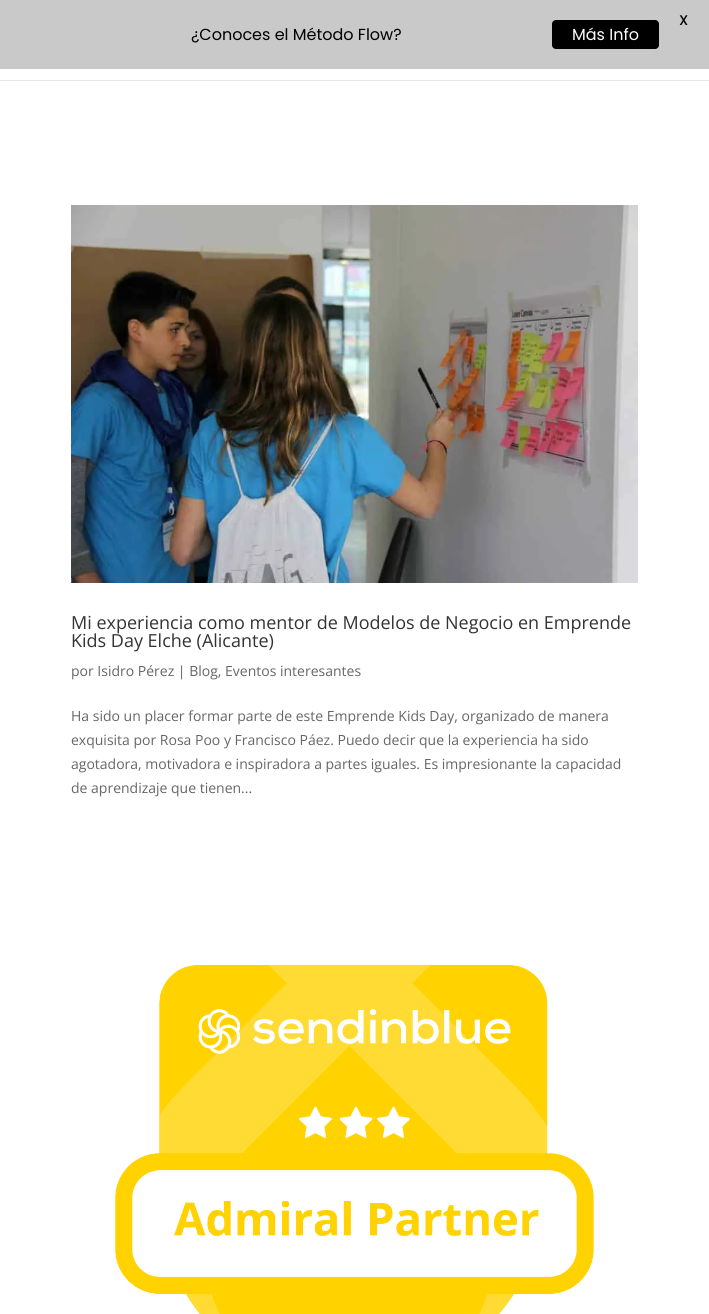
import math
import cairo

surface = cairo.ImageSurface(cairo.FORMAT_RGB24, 709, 1314)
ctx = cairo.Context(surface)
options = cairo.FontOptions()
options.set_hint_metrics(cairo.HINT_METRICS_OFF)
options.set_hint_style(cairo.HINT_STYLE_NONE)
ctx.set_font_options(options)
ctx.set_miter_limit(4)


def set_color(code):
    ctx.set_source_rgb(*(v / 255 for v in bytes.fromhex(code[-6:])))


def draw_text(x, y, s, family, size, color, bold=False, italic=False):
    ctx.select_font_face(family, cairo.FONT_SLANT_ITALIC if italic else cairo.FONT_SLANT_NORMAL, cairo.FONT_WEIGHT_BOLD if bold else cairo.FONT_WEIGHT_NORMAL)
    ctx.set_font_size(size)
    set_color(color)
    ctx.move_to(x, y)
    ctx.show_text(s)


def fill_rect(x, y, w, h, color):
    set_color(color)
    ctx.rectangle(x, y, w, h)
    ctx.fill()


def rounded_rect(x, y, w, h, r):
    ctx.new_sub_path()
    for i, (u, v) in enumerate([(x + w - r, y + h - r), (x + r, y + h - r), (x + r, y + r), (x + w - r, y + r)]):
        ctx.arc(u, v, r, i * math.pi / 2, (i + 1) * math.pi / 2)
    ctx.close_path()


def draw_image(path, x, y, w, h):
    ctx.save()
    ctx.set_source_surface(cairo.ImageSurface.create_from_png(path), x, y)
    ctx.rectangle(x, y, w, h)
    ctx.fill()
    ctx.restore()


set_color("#ffffff")
ctx.paint()
fill_rect(0, 0, 709, 69, "#c9c9c9")
draw_text(679, 25, "X", "Poppins Medium", 14, "#000000")
draw_text(191, 40, "¿Conoces el Método Flow?", "Poppins", 16, "#000000")
rounded_rect(552, 20, 107, 29, 4)
ctx.fill()
draw_text(572, 40, "Más Info", "Poppins", 16, "#ffffff")
fill_rect(0, 80, 709, 1, "#e6e6e6")
draw_image("assets/img1.png", 71, 205, 567, 378)
draw_text(71, 629, "Mi experiencia como mentor de Modelos de Negocio en Emprende", "Open Sans", 18, "#333333")
draw_text(71, 647, "Kids Day Elche (Alicante)", "Open Sans", 18, "#333333")
draw_text(71, 676, "por Isidro Pérez | Blog, Eventos interesantes", "Open Sans", 14, "#666666")
draw_text(71, 721, "Ha sido un placer formar parte de este Emprende Kids Day, organizado de manera", "Open Sans", 14, "#666666")
draw_text(71, 745, "exquisita por Rosa Poo y Francisco Páez. Puedo decir que la experiencia ha sido", "Open Sans", 14, "#666666")
draw_text(71, 769, "agotadora, motivadora e inspiradora a partes iguales. Es impresionante la capacidad", "Open Sans", 14, "#666666")
draw_text(71, 793, "de aprendizaje que tienen...", "Open Sans", 14, "#666666")
draw_image("assets/img2.png", 115, 964, 479, 350)
surface.write_to_png("output.png")
